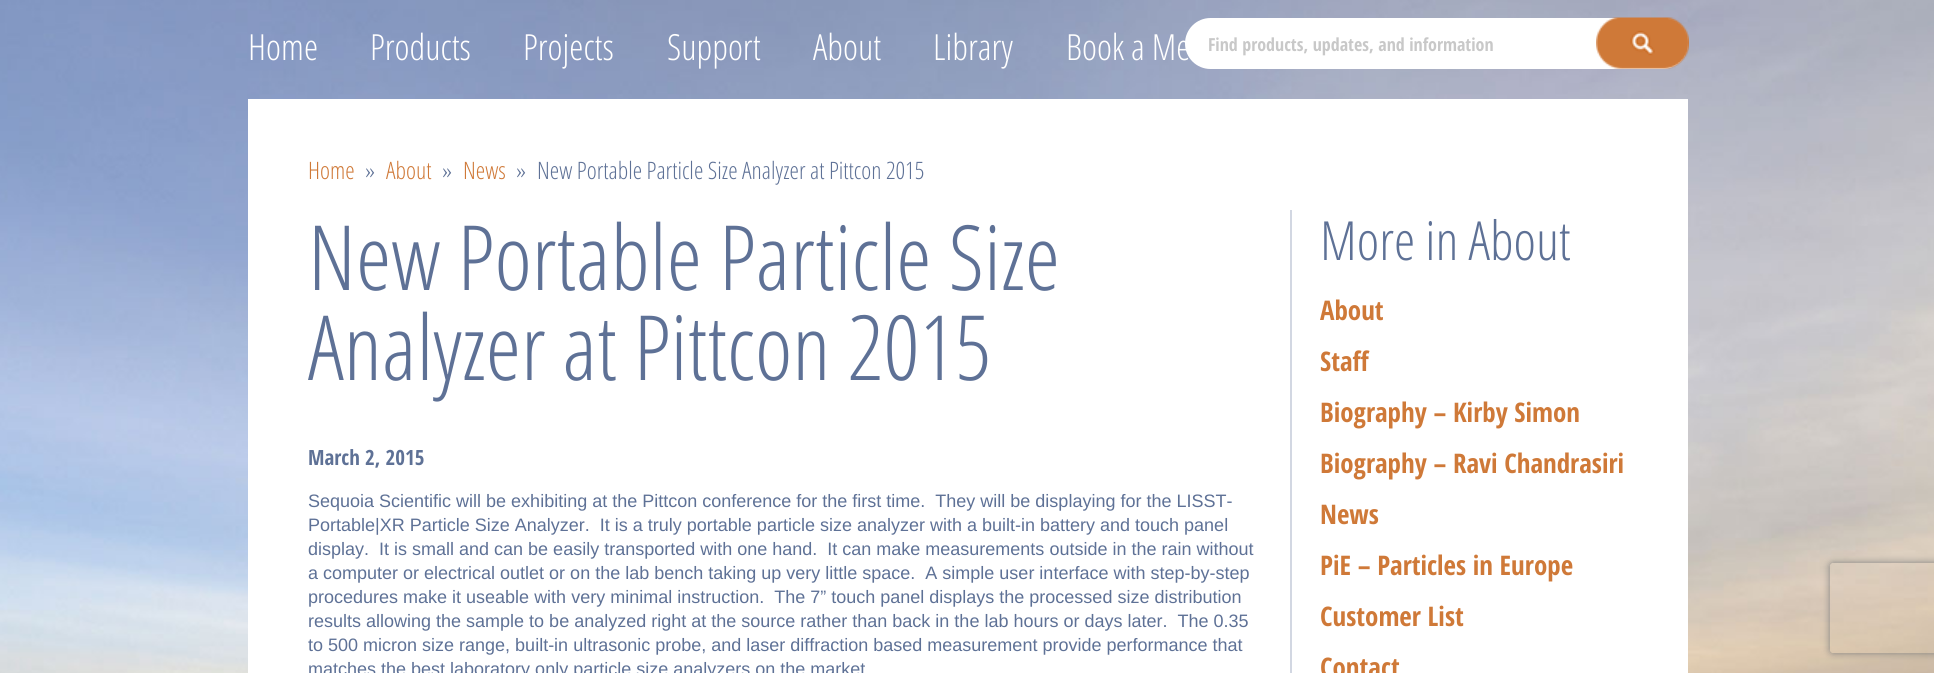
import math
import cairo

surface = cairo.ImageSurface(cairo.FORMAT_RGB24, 1934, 673)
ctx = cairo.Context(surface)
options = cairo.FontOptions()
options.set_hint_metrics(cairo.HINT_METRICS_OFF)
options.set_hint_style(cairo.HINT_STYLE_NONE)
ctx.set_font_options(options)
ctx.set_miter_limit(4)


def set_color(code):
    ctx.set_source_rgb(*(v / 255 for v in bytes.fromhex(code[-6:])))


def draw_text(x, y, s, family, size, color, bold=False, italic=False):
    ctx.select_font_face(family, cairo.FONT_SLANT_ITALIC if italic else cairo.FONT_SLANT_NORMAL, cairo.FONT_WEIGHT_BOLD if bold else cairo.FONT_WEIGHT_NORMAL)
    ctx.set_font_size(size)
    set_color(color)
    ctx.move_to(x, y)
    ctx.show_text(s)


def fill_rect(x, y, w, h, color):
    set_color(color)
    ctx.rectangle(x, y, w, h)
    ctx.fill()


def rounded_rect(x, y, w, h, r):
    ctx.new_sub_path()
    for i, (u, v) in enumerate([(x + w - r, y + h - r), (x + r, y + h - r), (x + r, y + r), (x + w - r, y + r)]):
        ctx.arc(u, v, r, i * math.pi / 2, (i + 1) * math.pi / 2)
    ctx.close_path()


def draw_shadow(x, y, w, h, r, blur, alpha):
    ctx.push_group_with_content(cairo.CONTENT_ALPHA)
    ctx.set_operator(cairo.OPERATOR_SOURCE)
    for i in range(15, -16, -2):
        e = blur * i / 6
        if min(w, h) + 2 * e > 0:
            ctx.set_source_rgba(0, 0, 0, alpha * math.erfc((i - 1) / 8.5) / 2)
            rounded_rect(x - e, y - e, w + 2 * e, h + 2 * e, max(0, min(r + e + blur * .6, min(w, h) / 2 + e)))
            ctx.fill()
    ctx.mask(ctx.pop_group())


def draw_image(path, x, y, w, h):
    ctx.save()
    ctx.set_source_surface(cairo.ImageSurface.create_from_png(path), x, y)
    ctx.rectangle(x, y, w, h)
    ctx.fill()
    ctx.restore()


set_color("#ffffff")
ctx.paint()
draw_image("assets/img1.png", 0, 0, 1934, 673)
draw_text(248, 60, "Home", "Open Sans Condensed Light", 36, "#ffffff")
draw_text(370, 60, "Products", "Open Sans Condensed Light", 36, "#ffffff")
draw_text(523, 60, "Projects", "Open Sans Condensed Light", 36, "#ffffff")
draw_text(667, 60, "Support", "Open Sans Condensed Light", 36, "#ffffff")
draw_text(813, 60, "About", "Open Sans Condensed Light", 36, "#ffffff")
draw_text(933, 60, "Library", "Open Sans Condensed Light", 36, "#ffffff")
draw_text(1066, 60, "Book a Me", "Open Sans Condensed Light", 36, "#ffffff")
rounded_rect(1185, 18, 503, 51, 25.5)
ctx.fill()
draw_text(1208, 51, "Find products, updates, and information", "Open Sans Condensed", 18, "#c8c8c8", bold=True)
draw_image("assets/img2.png", 1596, 17, 93, 52)
fill_rect(248, 99, 1440, 574, "#ffffff")
draw_text(308, 179, "Home", "Open Sans Condensed Light", 24, "#cf7938")
draw_text(365, 179, "»", "Open Sans Condensed Light", 24, "#5e7196")
draw_text(386, 179, "About", "Open Sans Condensed Light", 24, "#cf7938")
draw_text(442, 179, "»", "Open Sans Condensed Light", 24, "#5e7196")
draw_text(463, 179, "News", "Open Sans Condensed Light", 24, "#cf7938")
draw_text(516, 179, "»", "Open Sans Condensed Light", 24, "#5e7196")
draw_text(537, 179, "New Portable Particle Size Analyzer at Pittcon 2015", "Open Sans Condensed Light", 24, "#5e7196")
fill_rect(1290, 210, 2, 463, "#d2d7e2")
draw_text(308, 290, "New Portable Particle Size", "Open Sans Condensed Light", 90, "#5e7196")
draw_text(308, 380, "Analyzer at Pittcon 2015", "Open Sans Condensed Light", 90, "#5e7196")
draw_text(308, 465, "March 2, 2015", "Open Sans Condensed", 21, "#5e7196", bold=True)
draw_text(308, 507, "Sequoia Scientific will be exhibiting at the Pittcon conference for the first time.  They will be displaying for the LISST-", "Liberation Sans", 18, "#5e7196")
draw_text(308, 531, "Portable|XR Particle Size Analyzer.  It is a truly portable particle size analyzer with a built-in battery and touch panel", "Liberation Sans", 18, "#5e7196")
draw_text(308, 555, "display.  It is small and can be easily transported with one hand.  It can make measurements outside in the rain without", "Liberation Sans", 18, "#5e7196")
draw_text(308, 579, "a computer or electrical outlet or on the lab bench taking up very little space.  A simple user interface with step-by-step", "Liberation Sans", 18, "#5e7196")
draw_text(308, 603, "procedures make it useable with very minimal instruction.  The 7” touch panel displays the processed size distribution", "Liberation Sans", 18, "#5e7196")
draw_text(308, 627, "results allowing the sample to be analyzed right at the source rather than back in the lab hours or days later.  The 0.35", "Liberation Sans", 18, "#5e7196")
draw_text(308, 651, "to 500 micron size range, built-in ultrasonic probe, and laser diffraction based measurement provide performance that", "Liberation Sans", 18, "#5e7196")
draw_text(308, 675, "matches the best laboratory only particle size analyzers on the market", "Liberation Sans", 18, "#5e7196")
draw_text(1320, 260, "More in About", "Open Sans Condensed Light", 54, "#5e7196")
draw_text(1320, 320, "About", "Open Sans Condensed", 27, "#cf7938", bold=True)
draw_text(1320, 371, "Staff", "Open Sans Condensed", 27, "#cf7938", bold=True)
draw_text(1320, 422, "Biography – Kirby Simon", "Open Sans Condensed", 27, "#cf7938", bold=True)
draw_text(1320, 473, "Biography – Ravi Chandrasiri", "Open Sans Condensed", 27, "#cf7938", bold=True)
draw_text(1320, 524, "News", "Open Sans Condensed", 27, "#cf7938", bold=True)
draw_text(1320, 575, "PiE – Particles in Europe", "Open Sans Condensed", 27, "#cf7938", bold=True)
draw_text(1320, 626, "Customer List", "Open Sans Condensed", 27, "#cf7938", bold=True)
draw_text(1320, 677, "Contact", "Open Sans Condensed", 27, "#cf7938", bold=True)
ctx.save()
ctx.set_fill_rule(cairo.FILL_RULE_EVEN_ODD)
ctx.new_path()
ctx.move_to(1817, 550)
ctx.line_to(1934, 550)
ctx.line_to(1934, 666)
ctx.line_to(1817, 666)
ctx.close_path()
ctx.move_to(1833, 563)
ctx.line_to(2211, 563)
ctx.curve_to(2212.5, 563, 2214, 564.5, 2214, 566)
ctx.line_to(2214, 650)
ctx.curve_to(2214, 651.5, 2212.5, 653, 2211, 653)
ctx.line_to(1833, 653)
ctx.curve_to(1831.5, 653, 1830, 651.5, 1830, 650)
ctx.line_to(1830, 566)
ctx.curve_to(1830, 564.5, 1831.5, 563, 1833, 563)
ctx.close_path()
ctx.clip()
set_color("#808080")
draw_shadow(1830, 563, 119, 90, 3, 4, 1)
ctx.restore()
surface.write_to_png("output.png")
